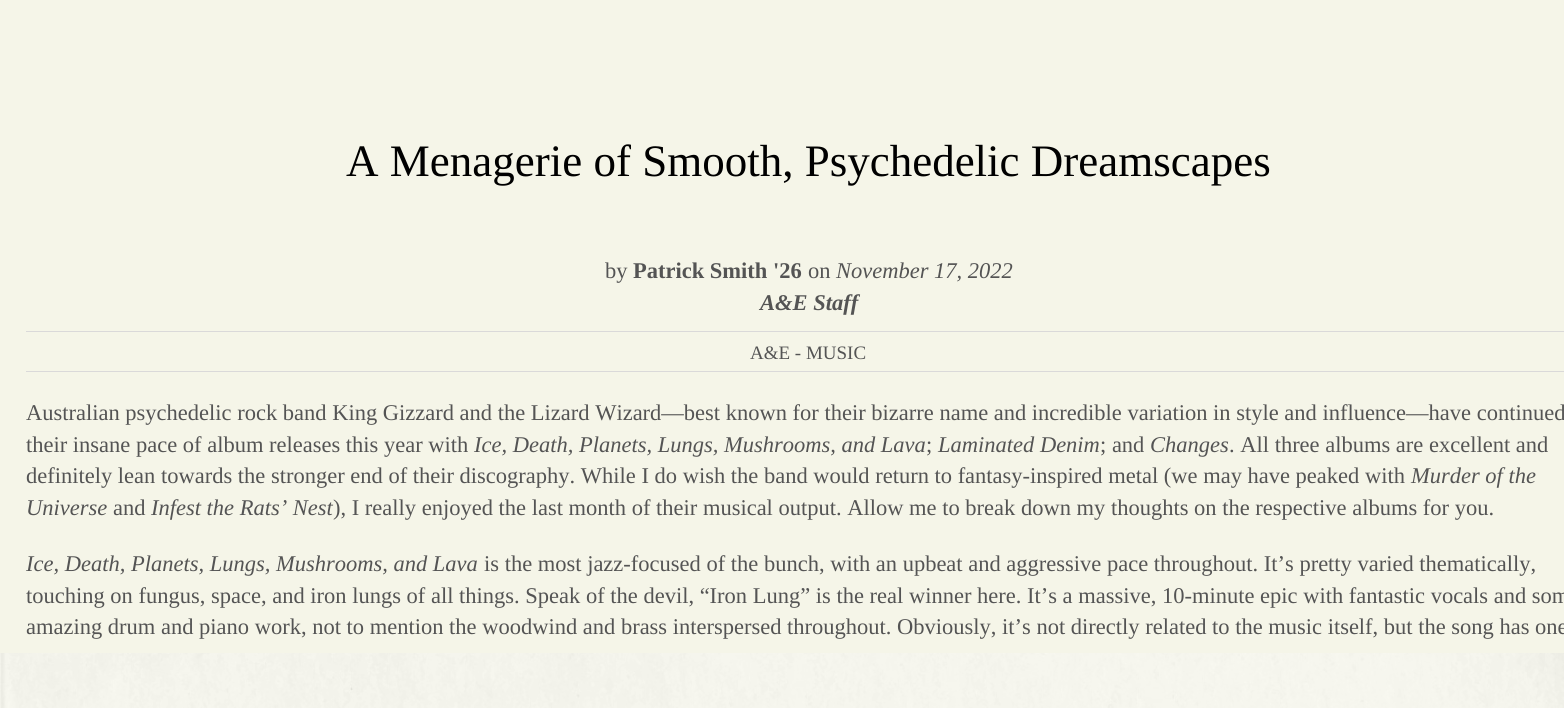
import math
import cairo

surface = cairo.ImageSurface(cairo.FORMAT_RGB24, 1564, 708)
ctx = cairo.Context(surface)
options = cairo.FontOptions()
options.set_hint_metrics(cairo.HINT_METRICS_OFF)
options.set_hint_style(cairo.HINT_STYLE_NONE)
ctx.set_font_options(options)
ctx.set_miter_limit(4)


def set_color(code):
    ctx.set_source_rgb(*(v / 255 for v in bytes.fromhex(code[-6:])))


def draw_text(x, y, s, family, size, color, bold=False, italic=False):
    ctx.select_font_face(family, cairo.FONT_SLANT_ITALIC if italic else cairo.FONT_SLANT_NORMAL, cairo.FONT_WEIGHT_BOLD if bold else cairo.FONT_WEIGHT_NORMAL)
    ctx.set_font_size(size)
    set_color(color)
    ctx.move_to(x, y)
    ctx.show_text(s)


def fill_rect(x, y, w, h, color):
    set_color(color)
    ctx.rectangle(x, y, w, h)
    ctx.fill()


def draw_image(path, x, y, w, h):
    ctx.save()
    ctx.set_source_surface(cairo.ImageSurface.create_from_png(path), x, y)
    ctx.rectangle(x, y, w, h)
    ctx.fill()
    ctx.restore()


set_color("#f9f9ef")
ctx.paint()
fill_rect(0, 0, 1564, 653, "#f5f5e8")
draw_text(346, 176, "A Menagerie of Smooth, Psychedelic Dreamscapes", "Liberation Serif", 45, "#000000")
draw_text(605, 278, "by", "Liberation Serif", 22.5, "#545454")
draw_text(633, 278, "Patrick Smith '26", "Liberation Serif", 22.5, "#545454", bold=True)
draw_text(808, 278, "on", "Liberation Serif", 22.5, "#545454")
draw_text(836, 278, "November 17, 2022", "Liberation Serif", 22.5, "#545454", italic=True)
draw_text(760, 310, "A&E Staff", "Liberation Serif", 22.5, "#545454", bold=True, italic=True)
fill_rect(26, 331, 1538, 1, "#dad9d9")
draw_text(750, 359, "A&E - MUSIC", "Liberation Serif", 19, "#545454")
fill_rect(26, 371, 1538, 1, "#dad9d9")
draw_text(26, 420, "Australian psychedelic rock band King Gizzard and the Lizard Wizard—best known for their bizarre name and incredible variation in style and influence—have continued", "Liberation Serif", 22.5, "#545454")
draw_text(26, 452, "their insane pace of album releases this year with", "Liberation Serif", 22.5, "#545454")
draw_text(474, 452, "Ice, Death, Planets, Lungs, Mushrooms, and Lava", "Liberation Serif", 22.5, "#545454", italic=True)
draw_text(926, 452, ";", "Liberation Serif", 22.5, "#545454")
draw_text(938, 452, "Laminated Denim", "Liberation Serif", 22.5, "#545454", italic=True)
draw_text(1100, 452, "; and", "Liberation Serif", 22.5, "#545454")
draw_text(1150, 452, "Changes", "Liberation Serif", 22.5, "#545454", italic=True)
draw_text(1229, 452, ". All three albums are excellent and", "Liberation Serif", 22.5, "#545454")
draw_text(26, 483, "definitely lean towards the stronger end of their discography. While I do wish the band would return to fantasy-inspired metal (we may have peaked with", "Liberation Serif", 22.5, "#545454")
draw_text(1411, 483, "Murder of the", "Liberation Serif", 22.5, "#545454", italic=True)
draw_text(26, 515, "Universe", "Liberation Serif", 22.5, "#545454", italic=True)
draw_text(113, 515, "and", "Liberation Serif", 22.5, "#545454")
draw_text(151, 515, "Infest the Rats’ Nest", "Liberation Serif", 22.5, "#545454", italic=True)
draw_text(333, 515, "), I really enjoyed the last month of their musical output. Allow me to break down my thoughts on the respective albums for you.", "Liberation Serif", 22.5, "#545454")
draw_text(26, 571, "Ice, Death, Planets, Lungs, Mushrooms, and Lava", "Liberation Serif", 22.5, "#545454", italic=True)
draw_text(484, 571, "is the most jazz-focused of the bunch, with an upbeat and aggressive pace throughout. It’s pretty varied thematically,", "Liberation Serif", 22.5, "#545454")
draw_text(26, 603, "touching on fungus, space, and iron lungs of all things. Speak of the devil, “Iron Lung” is the real winner here. It’s a massive, 10-minute epic with fantastic vocals and som", "Liberation Serif", 22.5, "#545454")
draw_text(26, 634, "amazing drum and piano work, not to mention the woodwind and brass interspersed throughout. Obviously, it’s not directly related to the music itself, but the song has one", "Liberation Serif", 22.5, "#545454")
draw_image("assets/img1.png", 0, 653, 1564, 55)
surface.write_to_png("output.png")
